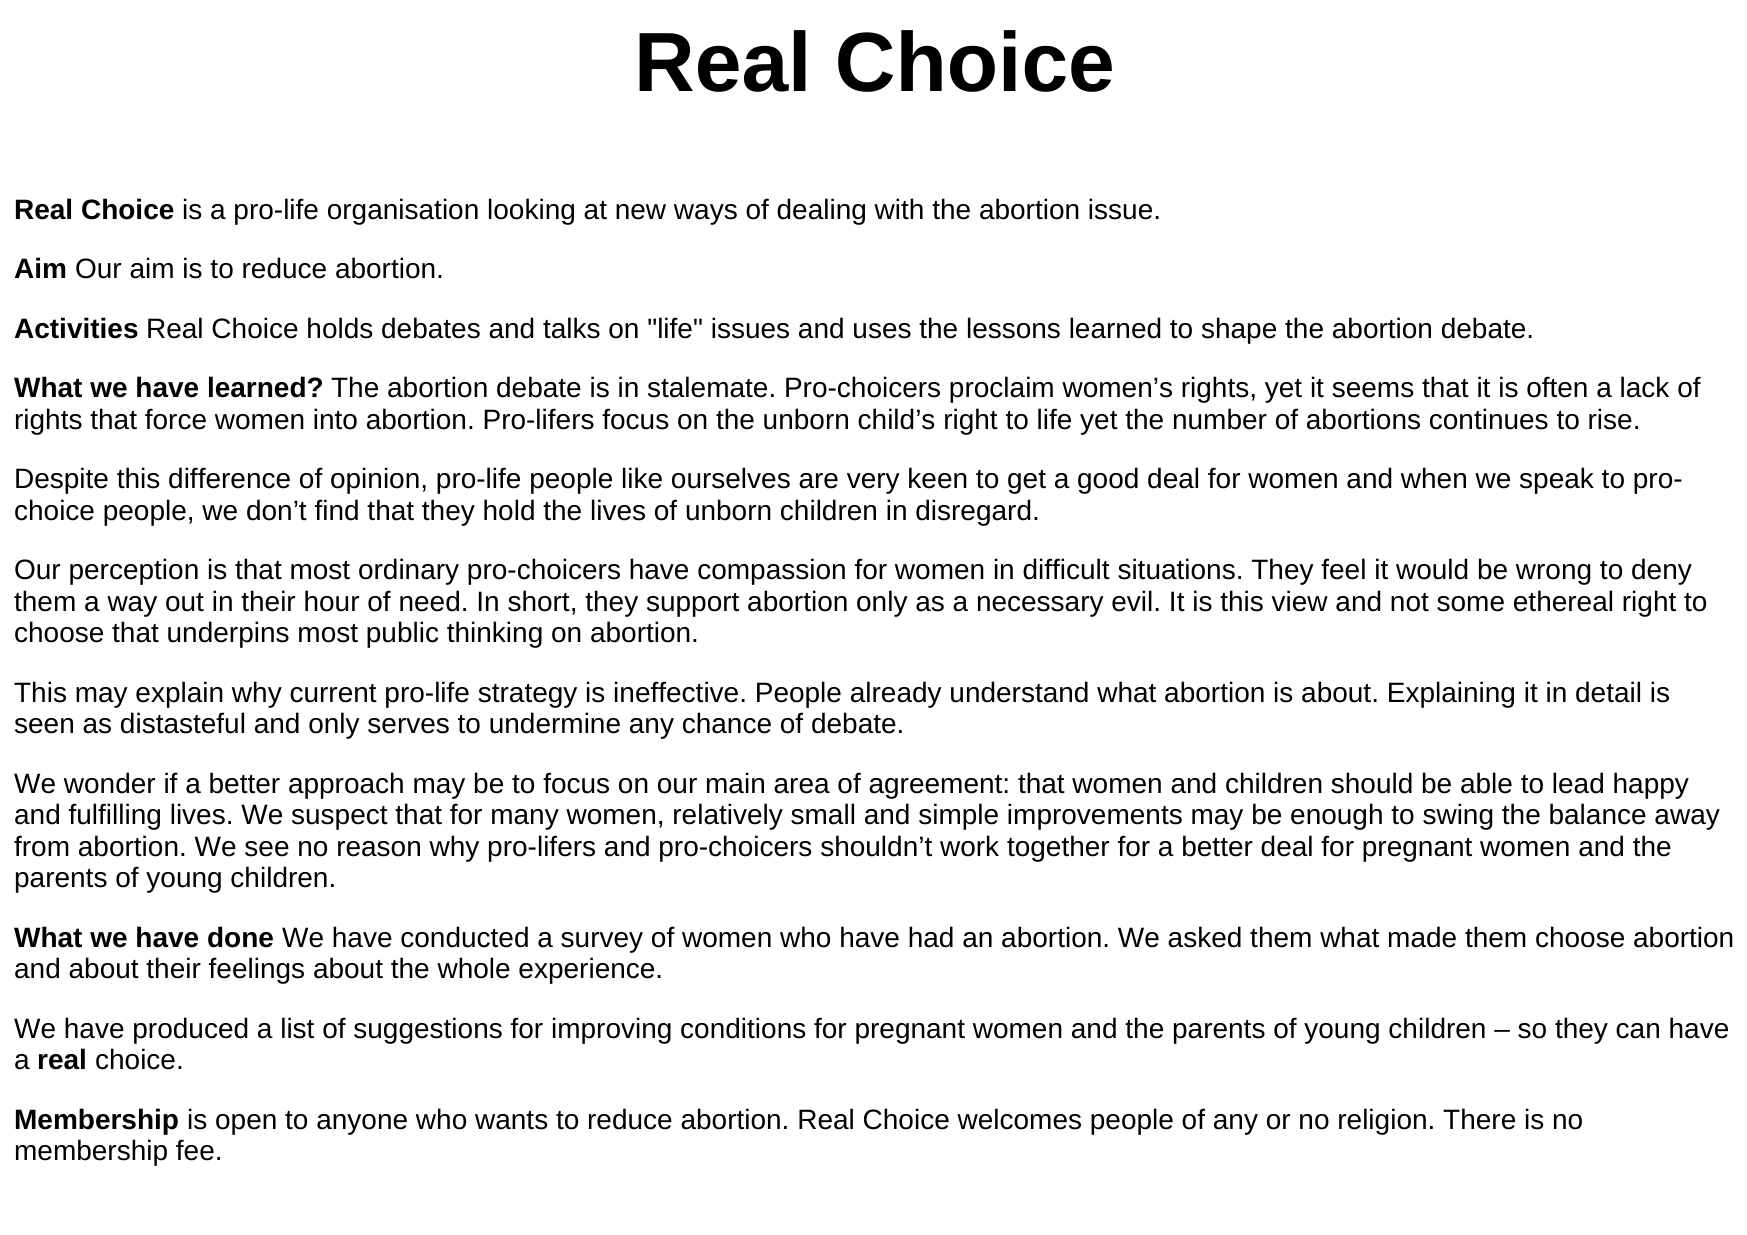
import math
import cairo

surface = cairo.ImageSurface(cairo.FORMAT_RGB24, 1747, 1235)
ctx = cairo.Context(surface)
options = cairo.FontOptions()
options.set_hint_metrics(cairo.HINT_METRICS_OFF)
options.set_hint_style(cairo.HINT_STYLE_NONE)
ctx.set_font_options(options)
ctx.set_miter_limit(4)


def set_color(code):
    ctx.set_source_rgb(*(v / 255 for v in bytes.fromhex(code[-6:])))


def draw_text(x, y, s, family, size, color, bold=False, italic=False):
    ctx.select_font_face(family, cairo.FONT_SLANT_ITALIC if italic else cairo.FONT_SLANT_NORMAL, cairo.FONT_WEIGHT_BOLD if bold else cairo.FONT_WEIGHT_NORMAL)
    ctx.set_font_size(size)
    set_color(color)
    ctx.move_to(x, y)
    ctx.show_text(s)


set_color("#ffffff")
ctx.paint()
draw_text(634, 91, "Real Choice", "Liberation Sans", 84, "#000000", bold=True)
draw_text(14, 219, "Real Choice", "Liberation Sans", 28, "#000000", bold=True)
draw_text(182, 219, "is a pro-life organisation looking at new ways of dealing with the abortion issue.", "Liberation Sans", 28, "#000000")
draw_text(14, 278, "Aim", "Liberation Sans", 28, "#000000", bold=True)
draw_text(75, 278, "Our aim is to reduce abortion.", "Liberation Sans", 28, "#000000")
draw_text(14, 338, "Activities", "Liberation Sans", 28, "#000000", bold=True)
draw_text(146, 338, "Real Choice holds debates and talks on \"life\" issues and uses the lessons learned to shape the abortion debate.", "Liberation Sans", 28, "#000000")
draw_text(14, 397, "What we have learned?", "Liberation Sans", 28, "#000000", bold=True)
draw_text(331, 397, "The abortion debate is in stalemate. Pro-choicers proclaim women’s rights, yet it seems that it is often a lack of", "Liberation Sans", 28, "#000000")
draw_text(14, 429, "rights that force women into abortion. Pro-lifers focus on the unborn child’s right to life yet the number of abortions continues to rise.", "Liberation Sans", 28, "#000000")
draw_text(14, 488, "Despite this difference of opinion, pro-life people like ourselves are very keen to get a good deal for women and when we speak to pro-", "Liberation Sans", 28, "#000000")
draw_text(14, 520, "choice people, we don’t find that they hold the lives of unborn children in disregard.", "Liberation Sans", 28, "#000000")
draw_text(14, 579, "Our perception is that most ordinary pro-choicers have compassion for women in difficult situations. They feel it would be wrong to deny", "Liberation Sans", 28, "#000000")
draw_text(14, 611, "them a way out in their hour of need. In short, they support abortion only as a necessary evil. It is this view and not some ethereal right to", "Liberation Sans", 28, "#000000")
draw_text(14, 642, "choose that underpins most public thinking on abortion.", "Liberation Sans", 28, "#000000")
draw_text(14, 702, "This may explain why current pro-life strategy is ineffective. People already understand what abortion is about. Explaining it in detail is", "Liberation Sans", 28, "#000000")
draw_text(14, 733, "seen as distasteful and only serves to undermine any chance of debate.", "Liberation Sans", 28, "#000000")
draw_text(14, 793, "We wonder if a better approach may be to focus on our main area of agreement: that women and children should be able to lead happy", "Liberation Sans", 28, "#000000")
draw_text(14, 824, "and fulfilling lives. We suspect that for many women, relatively small and simple improvements may be enough to swing the balance away", "Liberation Sans", 28, "#000000")
draw_text(14, 856, "from abortion. We see no reason why pro-lifers and pro-choicers shouldn’t work together for a better deal for pregnant women and the", "Liberation Sans", 28, "#000000")
draw_text(14, 887, "parents of young children.", "Liberation Sans", 28, "#000000")
draw_text(14, 947, "What we have done", "Liberation Sans", 28, "#000000", bold=True)
draw_text(282, 947, "We have conducted a survey of women who have had an abortion. We asked them what made them choose abortion", "Liberation Sans", 28, "#000000")
draw_text(14, 978, "and about their feelings about the whole experience.", "Liberation Sans", 28, "#000000")
draw_text(14, 1038, "We have produced a list of suggestions for improving conditions for pregnant women and the parents of young children – so they can have", "Liberation Sans", 28, "#000000")
draw_text(14, 1069, "a", "Liberation Sans", 28, "#000000")
draw_text(37, 1069, "real", "Liberation Sans", 28, "#000000", bold=True)
draw_text(95, 1069, "choice.", "Liberation Sans", 28, "#000000")
draw_text(14, 1129, "Membership", "Liberation Sans", 28, "#000000", bold=True)
draw_text(187, 1129, "is open to anyone who wants to reduce abortion. Real Choice welcomes people of any or no religion. There is no", "Liberation Sans", 28, "#000000")
draw_text(14, 1160, "membership fee.", "Liberation Sans", 28, "#000000")
surface.write_to_png("output.png")
